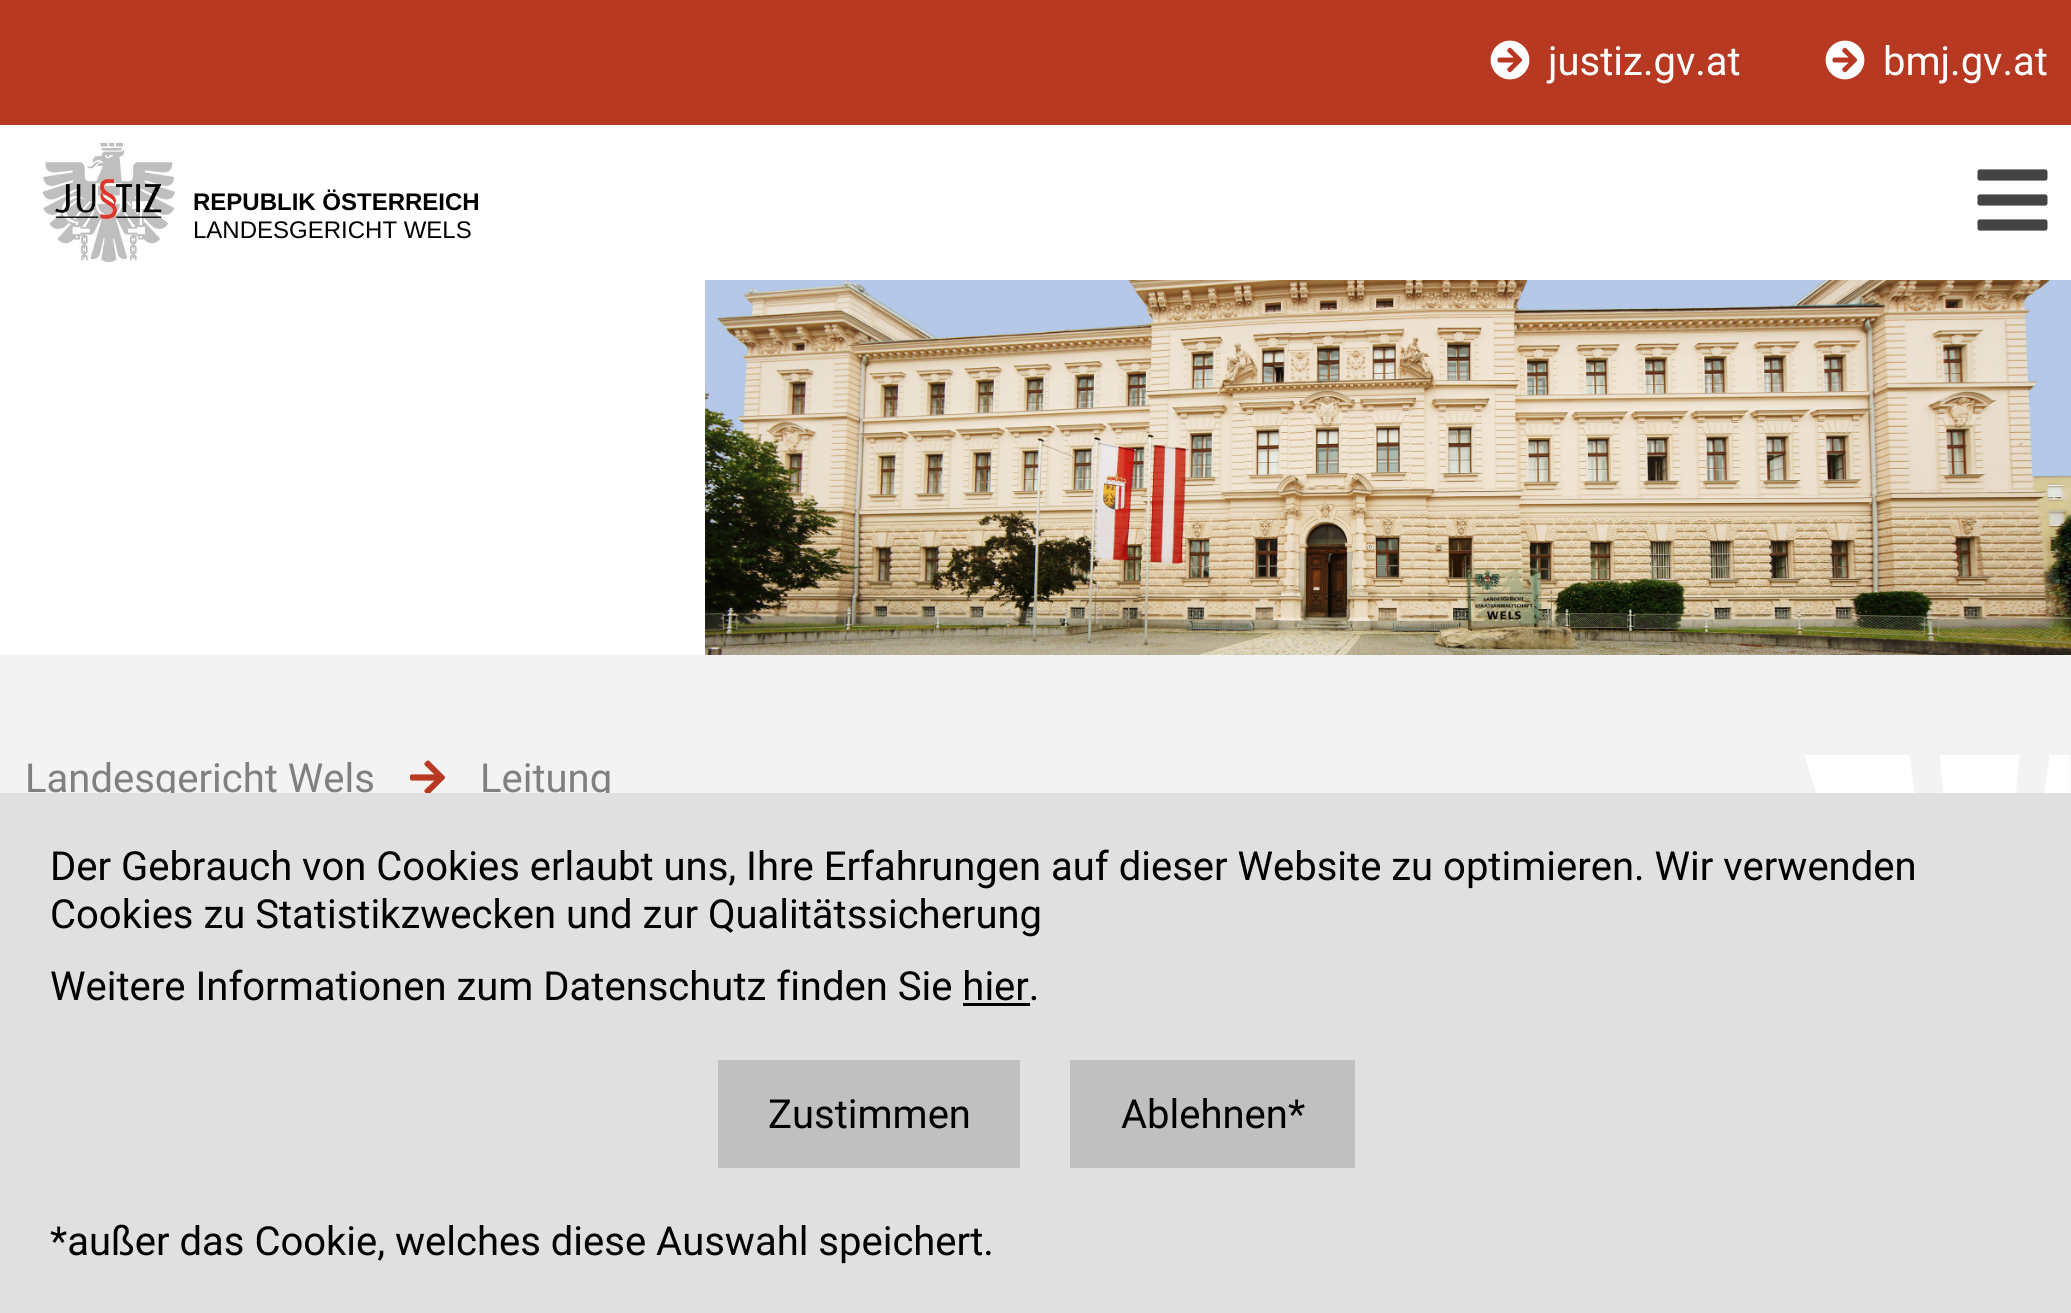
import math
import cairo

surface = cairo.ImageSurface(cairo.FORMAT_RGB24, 2071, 1313)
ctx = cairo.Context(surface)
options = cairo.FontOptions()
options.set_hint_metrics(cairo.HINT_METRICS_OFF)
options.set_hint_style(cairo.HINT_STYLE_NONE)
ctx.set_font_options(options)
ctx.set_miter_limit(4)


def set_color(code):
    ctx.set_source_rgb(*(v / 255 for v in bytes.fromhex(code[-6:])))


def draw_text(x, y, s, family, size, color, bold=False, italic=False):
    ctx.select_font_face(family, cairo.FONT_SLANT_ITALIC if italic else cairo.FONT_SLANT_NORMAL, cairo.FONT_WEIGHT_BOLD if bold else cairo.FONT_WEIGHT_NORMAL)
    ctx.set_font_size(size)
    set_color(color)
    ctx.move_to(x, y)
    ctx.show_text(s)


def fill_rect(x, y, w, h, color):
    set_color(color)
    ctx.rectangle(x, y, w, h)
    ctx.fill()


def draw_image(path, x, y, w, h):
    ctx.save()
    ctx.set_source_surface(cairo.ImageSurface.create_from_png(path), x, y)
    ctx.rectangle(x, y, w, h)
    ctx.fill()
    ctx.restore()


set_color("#ffffff")
ctx.paint()
fill_rect(0, 0, 2071, 125, "#b83921")
draw_image("assets/img1.png", 1490, 40, 40, 40)
draw_text(1548, 75, "justiz.gv.at", "Roboto", 40, "#ffffff")
draw_image("assets/img1.png", 1825, 40, 40, 40)
draw_text(1883, 75, "bmj.gv.at", "Roboto", 40, "#ffffff")
draw_image("assets/img2.png", 41, 141, 134, 122)
draw_text(193, 210, "REPUBLIK ÖSTERREICH", "Liberation Sans", 24, "#000000", bold=True)
draw_text(193, 238, "LANDESGERICHT WELS", "Liberation Sans", 24, "#000000")
draw_image("assets/img3.png", 1977, 169, 71, 62)
draw_image("assets/img4.png", 705, 280, 1366, 375)
fill_rect(0, 655, 2071, 138, "#f3f3f3")
draw_image("assets/img5.png", 1804, 755, 266, 38)
draw_text(25, 792, "Landesgericht Wels", "Roboto", 40, "#808080")
draw_image("assets/img6.png", 410, 760, 35, 33)
draw_text(480, 792, "Leitung", "Roboto", 40, "#808080")
fill_rect(0, 793, 2071, 520, "#e0e0e0")
draw_text(50, 880, "Der Gebrauch von Cookies erlaubt uns, Ihre Erfahrungen auf dieser Website zu optimieren. Wir verwenden", "Roboto", 40, "#000000")
draw_text(50, 928, "Cookies zu Statistikzwecken und zur Qualitätssicherung", "Roboto", 40, "#000000")
draw_text(50, 1000, "Weitere Informationen zum Datenschutz finden Sie hier.", "Roboto", 40, "#000000")
fill_rect(963, 1003, 67, 3, "#000000")
fill_rect(718, 1060, 302, 108, "#c0c0c0")
draw_text(768, 1128, "Zustimmen", "Roboto", 40, "#000000")
fill_rect(1070, 1060, 285, 108, "#c0c0c0")
draw_text(1121, 1128, "Ablehnen*", "Roboto", 40, "#000000")
draw_text(50, 1255, "*außer das Cookie, welches diese Auswahl speichert.", "Roboto", 40, "#000000")
surface.write_to_png("output.png")
